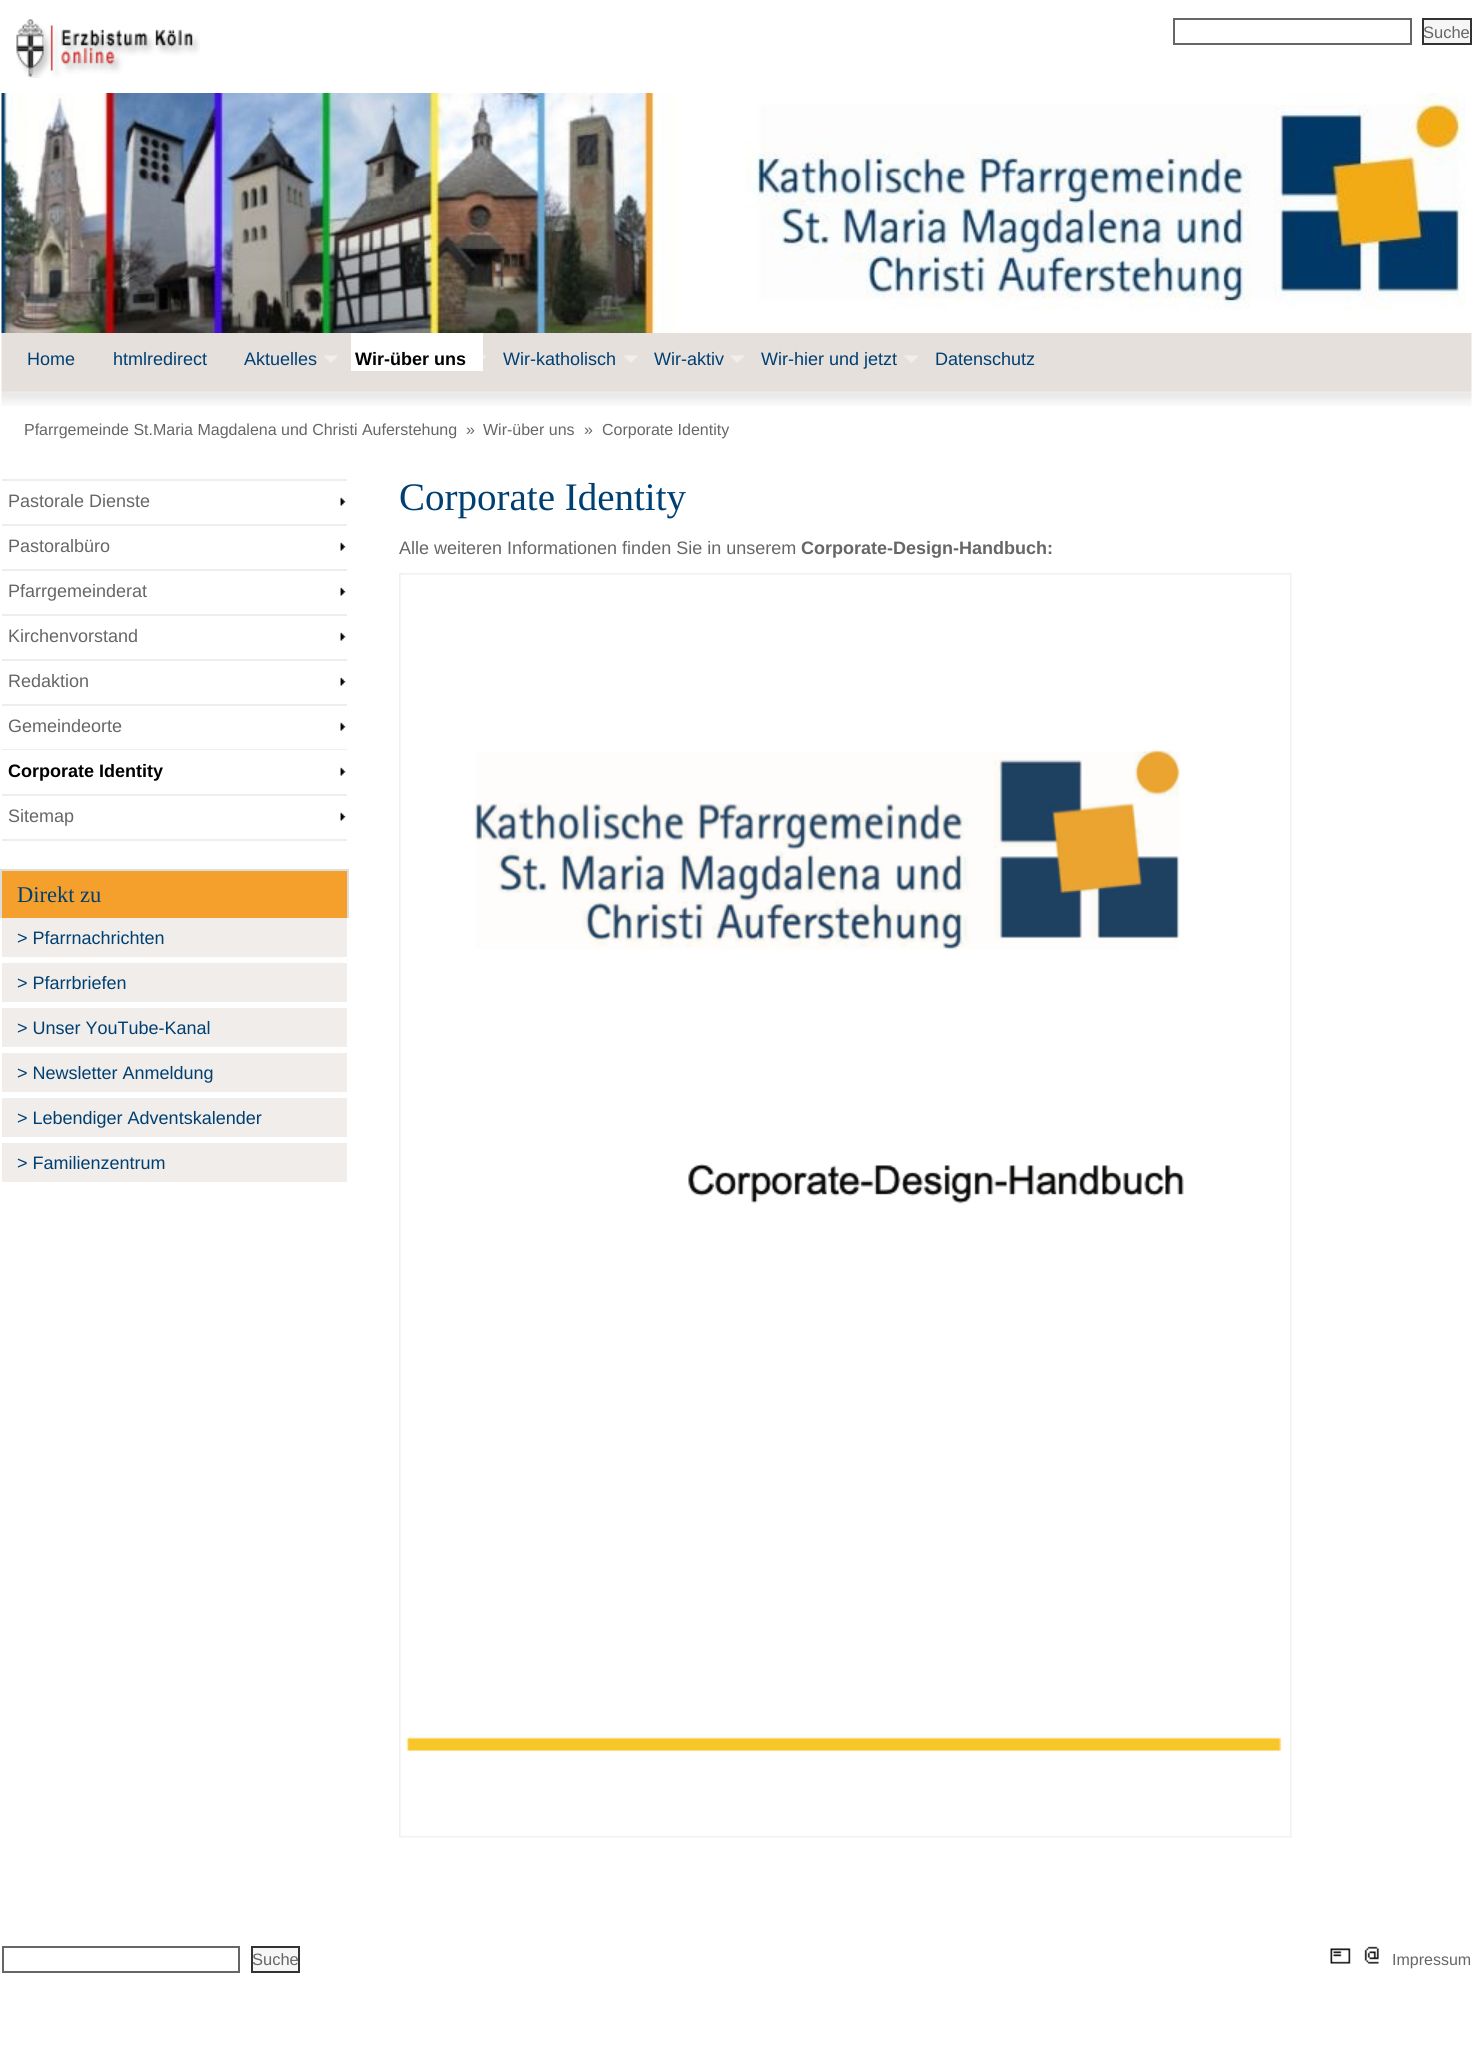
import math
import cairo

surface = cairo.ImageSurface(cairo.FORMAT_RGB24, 1473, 2064)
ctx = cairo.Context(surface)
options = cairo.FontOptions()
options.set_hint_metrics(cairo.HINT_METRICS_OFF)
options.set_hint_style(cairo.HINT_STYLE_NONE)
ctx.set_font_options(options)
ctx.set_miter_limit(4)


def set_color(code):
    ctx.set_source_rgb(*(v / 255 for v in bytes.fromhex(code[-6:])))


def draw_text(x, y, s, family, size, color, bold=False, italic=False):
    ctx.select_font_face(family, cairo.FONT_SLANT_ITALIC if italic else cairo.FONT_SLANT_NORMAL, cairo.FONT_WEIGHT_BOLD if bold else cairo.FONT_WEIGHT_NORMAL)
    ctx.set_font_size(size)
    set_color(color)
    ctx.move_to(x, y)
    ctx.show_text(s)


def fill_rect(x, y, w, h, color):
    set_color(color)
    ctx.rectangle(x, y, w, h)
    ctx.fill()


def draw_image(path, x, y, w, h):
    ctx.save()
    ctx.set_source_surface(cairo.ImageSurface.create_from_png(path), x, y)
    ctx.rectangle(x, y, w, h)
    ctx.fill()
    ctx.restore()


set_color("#ffffff")
ctx.paint()
draw_image("assets/img1.png", 16, 19, 184, 59)
ctx.rectangle(1174, 19, 237, 25)
set_color("#666666")
ctx.stroke()
set_color("#f6f6f6")
ctx.rectangle(1423, 19, 48, 25)
ctx.fill_preserve()
set_color("#333333")
ctx.stroke()
draw_text(1423, 38, "Suche", "Liberation Sans", 16.5, "#666666")
draw_image("assets/img2.png", 1, 93, 1465, 240)
draw_image("assets/img3.png", 1, 333, 1471, 73)
draw_text(27, 365, "Home", "Liberation Sans", 18, "#003f72")
draw_text(113, 365, "htmlredirect", "Liberation Sans", 18, "#003f72")
draw_text(244, 365, "Aktuelles", "Liberation Sans", 18, "#003f72")
draw_image("assets/img4.png", 324, 355, 14, 8)
fill_rect(351, 333, 132, 38, "#ffffff")
draw_text(355, 365, "Wir-über uns", "Liberation Sans", 18, "#000000", bold=True)
draw_image("assets/img5.png", 483, 355, 3, 4)
draw_text(503, 365, "Wir-katholisch", "Liberation Sans", 18, "#003f72")
draw_image("assets/img6.png", 624, 355, 14, 8)
draw_text(654, 365, "Wir-aktiv", "Liberation Sans", 18, "#003f72")
draw_image("assets/img7.png", 730, 355, 14, 8)
draw_text(761, 365, "Wir-hier und jetzt", "Liberation Sans", 18, "#003f72")
draw_image("assets/img8.png", 904, 355, 14, 8)
draw_text(935, 365, "Datenschutz", "Liberation Sans", 18, "#003f72")
draw_text(24, 435, "Pfarrgemeinde St.Maria Magdalena und Christi Auferstehung", "Liberation Sans", 16, "#666666")
draw_text(466, 435, "»", "Liberation Sans", 16, "#666666")
draw_text(483, 435, "Wir-über uns", "Liberation Sans", 16, "#666666")
draw_text(584, 435, "»", "Liberation Sans", 16, "#666666")
draw_text(602, 435, "Corporate Identity", "Liberation Sans", 16, "#666666")
fill_rect(2, 479, 345, 2, "#eeeeee")
draw_image("assets/img9.png", 340, 497, 6, 9)
fill_rect(2, 524, 345, 2, "#eeeeee")
draw_text(8, 507, "Pastorale Dienste", "Liberation Sans", 18, "#666666")
draw_image("assets/img9.png", 340, 542, 6, 9)
fill_rect(2, 569, 345, 2, "#eeeeee")
draw_text(8, 552, "Pastoralbüro", "Liberation Sans", 18, "#666666")
draw_image("assets/img9.png", 340, 587, 6, 9)
fill_rect(2, 614, 345, 2, "#eeeeee")
draw_text(8, 597, "Pfarrgemeinderat", "Liberation Sans", 18, "#666666")
draw_image("assets/img9.png", 340, 632, 6, 9)
fill_rect(2, 659, 345, 2, "#eeeeee")
draw_text(8, 642, "Kirchenvorstand", "Liberation Sans", 18, "#666666")
draw_image("assets/img9.png", 340, 677, 6, 9)
fill_rect(2, 704, 345, 2, "#eeeeee")
draw_text(8, 687, "Redaktion", "Liberation Sans", 18, "#666666")
draw_image("assets/img9.png", 340, 722, 6, 9)
fill_rect(2, 749, 345, 1, "#eeeeee")
draw_text(8, 732, "Gemeindeorte", "Liberation Sans", 18, "#666666")
draw_image("assets/img9.png", 340, 767, 6, 9)
fill_rect(2, 794, 345, 2, "#eeeeee")
draw_text(8, 777, "Corporate Identity", "Liberation Sans", 18, "#000000", bold=True)
draw_image("assets/img9.png", 340, 812, 6, 9)
fill_rect(2, 839, 345, 2, "#eeeeee")
draw_text(8, 822, "Sitemap", "Liberation Sans", 18, "#666666")
fill_rect(2, 871, 345, 47, "#f59f2c")
fill_rect(0, 869, 348, 2, "#dddddd")
fill_rect(347, 869, 2, 49, "#dddddd")
fill_rect(0, 869, 2, 49, "#dddddd")
draw_text(17, 902, "Direkt zu", "Liberation Serif", 22.5, "#003f72")
fill_rect(2, 918, 345, 39, "#f0edea")
draw_text(17, 944, "> Pfarrnachrichten", "Liberation Sans", 18, "#003f72")
fill_rect(2, 963, 345, 39, "#f0edea")
draw_text(17, 989, "> Pfarrbriefen", "Liberation Sans", 18, "#003f72")
fill_rect(2, 1008, 345, 39, "#f0edea")
draw_text(17, 1034, "> Unser YouTube-Kanal", "Liberation Sans", 18, "#003f72")
fill_rect(2, 1053, 345, 39, "#f0edea")
draw_text(17, 1079, "> Newsletter Anmeldung", "Liberation Sans", 18, "#003f72")
fill_rect(2, 1098, 345, 39, "#f0edea")
draw_text(17, 1124, "> Lebendiger Adventskalender", "Liberation Sans", 18, "#003f72")
fill_rect(2, 1143, 345, 39, "#f0edea")
draw_text(17, 1169, "> Familienzentrum", "Liberation Sans", 18, "#003f72")
draw_text(399, 510, "Corporate Identity", "Liberation Serif", 39, "#003f72")
draw_text(399, 554, "Alle weiteren Informationen finden Sie in unserem", "Liberation Sans", 18, "#666666")
draw_text(801, 554, "Corporate-Design-Handbuch:", "Liberation Sans", 18, "#666666", bold=True)
draw_image("assets/img10.png", 399, 573, 893, 1265)
ctx.rectangle(3, 1947, 236, 25)
ctx.stroke()
set_color("#f6f6f6")
ctx.rectangle(252, 1947, 47, 25)
ctx.fill_preserve()
set_color("#333333")
ctx.stroke()
draw_text(252, 1965, "Suche", "Liberation Sans", 16.5, "#666666")
draw_image("assets/img11.png", 1330, 1948, 21, 16)
draw_image("assets/img12.png", 1364, 1946, 15, 18)
draw_text(1392, 1965, "Impressum", "Liberation Sans", 16, "#666666")
surface.write_to_png("output.png")
